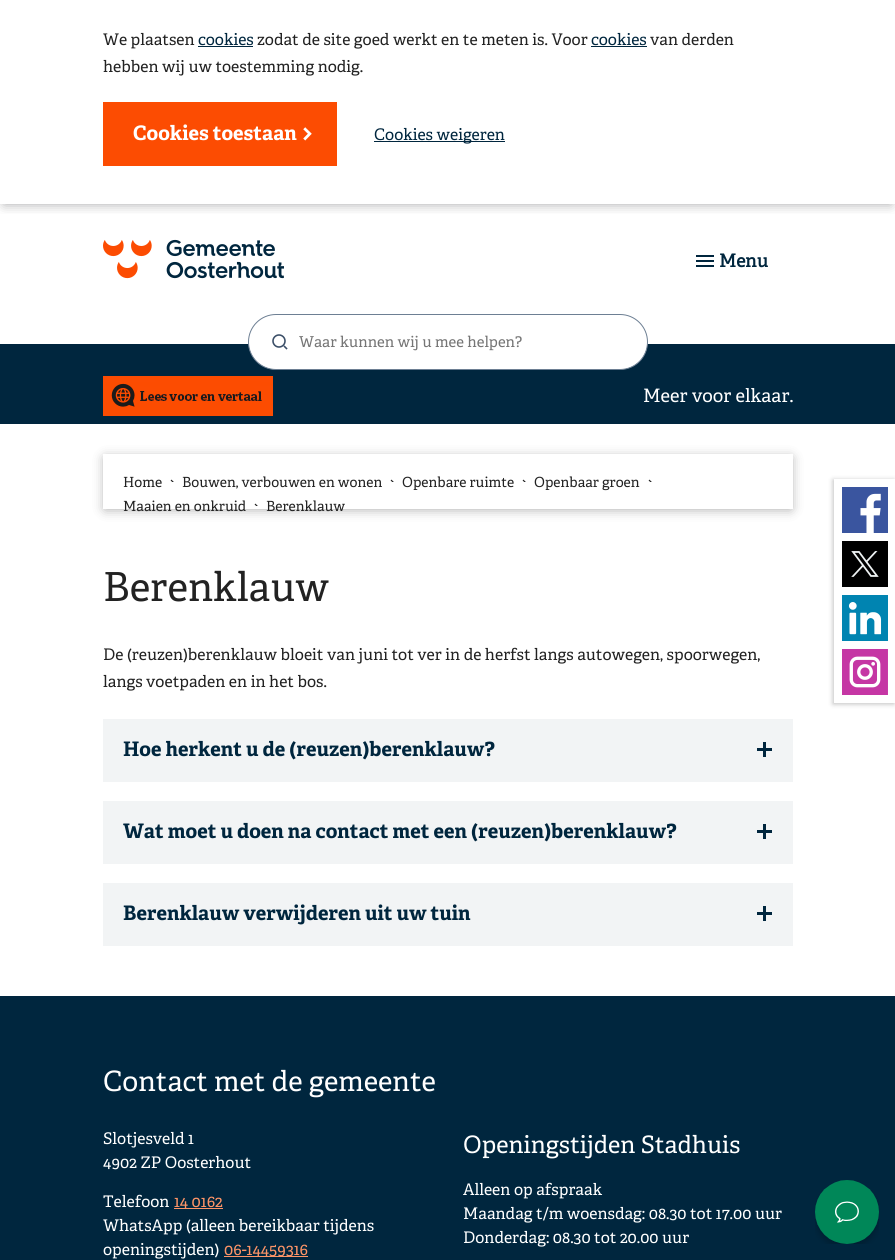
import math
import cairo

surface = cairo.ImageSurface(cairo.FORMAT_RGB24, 895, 1260)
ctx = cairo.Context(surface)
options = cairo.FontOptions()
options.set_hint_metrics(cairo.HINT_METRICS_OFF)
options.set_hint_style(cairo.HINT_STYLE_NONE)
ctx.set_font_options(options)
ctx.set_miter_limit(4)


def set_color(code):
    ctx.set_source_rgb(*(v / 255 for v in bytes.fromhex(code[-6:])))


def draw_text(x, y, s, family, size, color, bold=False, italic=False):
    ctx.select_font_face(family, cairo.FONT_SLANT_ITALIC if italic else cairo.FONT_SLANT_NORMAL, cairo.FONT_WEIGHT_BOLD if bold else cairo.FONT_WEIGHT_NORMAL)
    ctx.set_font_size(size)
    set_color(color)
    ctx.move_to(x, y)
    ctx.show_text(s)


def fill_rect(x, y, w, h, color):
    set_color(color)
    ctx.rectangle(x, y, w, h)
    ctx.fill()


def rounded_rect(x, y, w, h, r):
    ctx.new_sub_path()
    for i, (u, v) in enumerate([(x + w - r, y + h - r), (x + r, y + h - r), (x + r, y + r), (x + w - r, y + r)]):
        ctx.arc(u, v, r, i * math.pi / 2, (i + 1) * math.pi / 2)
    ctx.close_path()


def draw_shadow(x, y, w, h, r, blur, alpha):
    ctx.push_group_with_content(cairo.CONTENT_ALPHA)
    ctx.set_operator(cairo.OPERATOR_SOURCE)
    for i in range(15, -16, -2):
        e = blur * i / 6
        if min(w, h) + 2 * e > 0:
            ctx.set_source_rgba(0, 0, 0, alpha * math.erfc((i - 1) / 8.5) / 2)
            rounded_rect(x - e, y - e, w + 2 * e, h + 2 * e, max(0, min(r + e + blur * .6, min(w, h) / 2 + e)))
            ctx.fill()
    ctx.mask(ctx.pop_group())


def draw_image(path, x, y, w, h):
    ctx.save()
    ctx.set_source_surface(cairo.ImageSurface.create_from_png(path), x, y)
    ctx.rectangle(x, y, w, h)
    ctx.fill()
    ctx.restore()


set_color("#ffffff")
ctx.paint()
ctx.save()
ctx.rectangle(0, 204, 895, 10)
ctx.clip()
set_color("#242526")
draw_shadow(4, 8, 887, 196, 0, 6, 0.4)
ctx.restore()
draw_text(103, 45, "We plaatsen", "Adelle", 16, "#222222")
draw_text(198, 45, "cookies", "Adelle", 16, "#00263e")
fill_rect(198, 46, 55, 1, "#00263e")
draw_text(257, 45, "zodat de site goed werkt en te meten is. Voor", "Adelle", 16, "#222222")
draw_text(591, 45, "cookies", "Adelle", 16, "#00263e")
fill_rect(591, 46, 56, 1, "#00263e")
draw_text(650, 45, "van derden", "Adelle", 16, "#222222")
draw_text(103, 72, "hebben wij uw toestemming nodig.", "Adelle", 16, "#222222")
fill_rect(103, 102, 234, 64, "#fc4c02")
draw_text(133, 140, "Cookies toestaan", "Adelle", 20, "#ffffff", bold=True)
draw_image("assets/img1.png", 303, 127, 9, 14)
fill_rect(374, 141, 131, 1, "#00263e")
draw_text(374, 140, "Cookies weigeren", "Adelle", 16, "#00263e")
draw_image("assets/img2.png", 103, 239, 181, 40)
draw_image("assets/img3.png", 696, 255, 18, 12)
draw_text(719, 267, "Menu", "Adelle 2", 18, "#00263e", bold=True)
fill_rect(0, 344, 895, 80, "#00263e")
set_color("#ffffff")
rounded_rect(248.5, 314.5, 399, 55, 27.5)
ctx.fill_preserve()
set_color("#6d7f93")
ctx.set_line_width(1)
ctx.stroke()
ctx.arc(279, 341, 6, 0, 2 * math.pi)
set_color("#3b4f68")
ctx.set_line_width(1.6)
ctx.stroke()
ctx.new_path()
ctx.move_to(284.5, 346.5)
ctx.line_to(286.5, 348.5)
ctx.set_line_cap(cairo.LINE_CAP_SQUARE)
ctx.stroke()
draw_text(299, 347, "Waar kunnen wij u mee helpen?", "Adelle", 15, "#757575")
draw_image("assets/img4.png", 103, 376, 170, 40)
draw_text(643, 402, "Meer voor elkaar.", "Adelle", 18.5, "#ffffff")
ctx.save()
ctx.set_fill_rule(cairo.FILL_RULE_EVEN_ODD)
ctx.new_path()
ctx.move_to(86, 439)
ctx.line_to(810, 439)
ctx.line_to(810, 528)
ctx.line_to(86, 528)
ctx.close_path()
ctx.move_to(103, 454)
ctx.line_to(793, 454)
ctx.line_to(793, 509)
ctx.line_to(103, 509)
ctx.close_path()
ctx.clip()
set_color("#000000")
draw_shadow(105, 458, 686, 51, 0, 6, 0.35)
ctx.restore()
draw_text(123, 487, "Home", "Adelle", 14, "#222222")
draw_image("assets/img5.png", 170, 479, 4, 3)
draw_text(182, 487, "Bouwen, verbouwen en wonen", "Adelle", 14, "#222222")
draw_image("assets/img5.png", 390, 479, 4, 3)
draw_text(402, 487, "Openbare ruimte", "Adelle", 14, "#222222")
draw_image("assets/img5.png", 522, 479, 4, 3)
draw_text(534, 487, "Openbaar groen", "Adelle", 14, "#222222")
draw_image("assets/img5.png", 648, 479, 4, 3)
draw_text(123, 511, "Maaien en onkruid", "Adelle", 14, "#222222")
draw_image("assets/img5.png", 254, 503, 4, 3)
draw_text(266, 511, "Berenklauw", "Adelle", 14, "#222222")
ctx.save()
ctx.set_fill_rule(cairo.FILL_RULE_EVEN_ODD)
ctx.new_path()
ctx.move_to(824, 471)
ctx.line_to(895, 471)
ctx.line_to(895, 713)
ctx.line_to(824, 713)
ctx.close_path()
ctx.move_to(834, 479)
ctx.line_to(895, 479)
ctx.line_to(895, 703)
ctx.line_to(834, 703)
ctx.close_path()
ctx.clip()
set_color("#000000")
draw_shadow(833, 480, 61, 224, 0, 2.5, 0.25)
ctx.restore()
draw_image("assets/img6.png", 842, 487, 46, 46)
draw_image("assets/img7.png", 842, 541, 46, 46)
draw_image("assets/img8.png", 842, 595, 46, 46)
draw_image("assets/img9.png", 842, 649, 46, 46)
draw_text(103, 601, "Berenklauw", "Adelle", 40, "#222222")
draw_text(103, 660, "De (reuzen)berenklauw bloeit van juni tot ver in de herfst langs autowegen, spoorwegen,", "Adelle", 16, "#222222")
draw_text(103, 687, "langs voetpaden en in het bos.", "Adelle", 16, "#222222")
fill_rect(103, 719, 690, 63, "#f2f4f5")
draw_image("assets/img10.png", 757, 742, 15, 15)
draw_text(123, 756, "Hoe herkent u de (reuzen)berenklauw?", "Adelle", 20, "#00263e", bold=True)
fill_rect(103, 801, 690, 63, "#f2f4f5")
draw_image("assets/img10.png", 757, 824, 15, 15)
draw_text(123, 838, "Wat moet u doen na contact met een (reuzen)berenklauw?", "Adelle", 20, "#00263e", bold=True)
fill_rect(103, 883, 690, 63, "#f2f4f5")
draw_image("assets/img10.png", 757, 906, 15, 15)
draw_text(123, 920, "Berenklauw verwijderen uit uw tuin", "Adelle", 20, "#00263e", bold=True)
fill_rect(0, 996, 895, 264, "#00263e")
draw_text(103, 1091, "Contact met de gemeente", "Adelle", 28, "#ffffff")
draw_text(103, 1144, "Slotjesveld 1", "Adelle", 16, "#ffffff")
draw_text(103, 1168, "4902 ZP Oosterhout", "Adelle", 16, "#ffffff")
draw_text(103, 1207, "Telefoon", "Adelle", 16, "#ffffff")
fill_rect(174, 1208, 49, 1, "#fd9467")
draw_text(174, 1207, "14 0162", "Adelle", 16, "#fd9467")
draw_text(103, 1231, "WhatsApp (alleen bereikbaar tijdens", "Adelle", 16, "#ffffff")
draw_text(103, 1255, "openingstijden)", "Adelle", 16, "#ffffff")
fill_rect(224, 1256, 84, 1, "#fd9467")
draw_text(224, 1255, "06-14459316", "Adelle", 16, "#fd9467")
draw_text(463, 1153, "Openingstijden Stadhuis", "Adelle", 24, "#ffffff")
draw_text(463, 1195, "Alleen op afspraak", "Adelle", 16, "#ffffff")
draw_text(463, 1219, "Maandag t/m woensdag: 08.30 tot 17.00 uur", "Adelle", 16, "#ffffff")
draw_text(463, 1243, "Donderdag: 08.30 tot 20.00 uur", "Adelle", 16, "#ffffff")
draw_image("assets/img11.png", 815, 1180, 64, 64)
surface.write_to_png("output.png")
